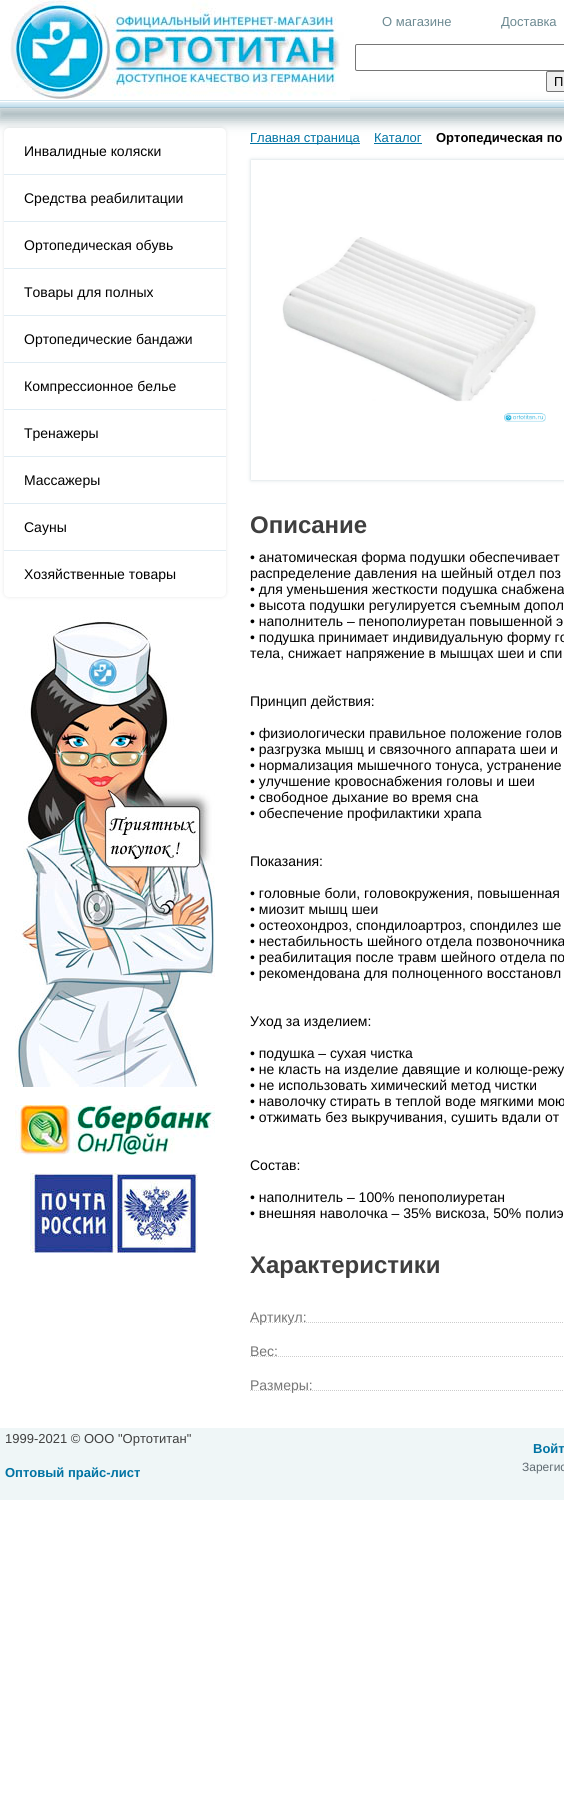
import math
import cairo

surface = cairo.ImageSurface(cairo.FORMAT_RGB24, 564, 1798)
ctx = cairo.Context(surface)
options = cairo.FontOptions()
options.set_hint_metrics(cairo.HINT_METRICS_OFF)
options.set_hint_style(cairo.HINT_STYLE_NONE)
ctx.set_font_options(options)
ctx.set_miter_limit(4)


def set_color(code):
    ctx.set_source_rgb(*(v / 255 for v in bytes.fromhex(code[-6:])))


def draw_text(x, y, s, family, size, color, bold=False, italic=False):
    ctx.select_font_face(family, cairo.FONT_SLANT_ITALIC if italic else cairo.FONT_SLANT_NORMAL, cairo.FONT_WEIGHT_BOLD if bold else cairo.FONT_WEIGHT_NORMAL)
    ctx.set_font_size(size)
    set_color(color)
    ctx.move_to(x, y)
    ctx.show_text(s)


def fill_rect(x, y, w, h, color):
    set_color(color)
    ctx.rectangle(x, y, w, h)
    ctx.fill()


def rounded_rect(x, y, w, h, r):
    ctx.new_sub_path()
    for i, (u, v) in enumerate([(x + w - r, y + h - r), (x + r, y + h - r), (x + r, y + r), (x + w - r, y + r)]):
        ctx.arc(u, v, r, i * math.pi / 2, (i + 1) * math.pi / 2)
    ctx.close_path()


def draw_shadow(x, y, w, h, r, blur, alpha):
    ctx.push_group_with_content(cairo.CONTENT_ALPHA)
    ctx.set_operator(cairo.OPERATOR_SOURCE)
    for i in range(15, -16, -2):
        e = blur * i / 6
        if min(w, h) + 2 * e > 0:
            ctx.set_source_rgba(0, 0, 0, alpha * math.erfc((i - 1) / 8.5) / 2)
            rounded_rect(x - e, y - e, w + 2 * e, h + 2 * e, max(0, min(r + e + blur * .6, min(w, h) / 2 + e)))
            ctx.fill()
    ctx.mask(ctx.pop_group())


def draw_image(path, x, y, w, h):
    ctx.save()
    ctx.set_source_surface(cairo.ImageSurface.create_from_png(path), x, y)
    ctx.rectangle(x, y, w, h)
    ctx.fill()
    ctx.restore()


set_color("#ffffff")
ctx.paint()
set_color("#385e68")
draw_shadow(-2, 108, 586, 12, 0, 6.5, 0.47)
draw_image("assets/img1.png", 0, 0, 350, 100)
draw_text(382, 26, "О магазине", "Liberation Sans", 13, "#6d8a92")
draw_text(501, 26, "Доставка", "Liberation Sans", 13, "#6d8a92")
rounded_rect(355.5, 44.5, 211, 26, 1.5)
set_color("#767676")
ctx.set_line_width(1)
ctx.stroke()
set_color("#efefef")
rounded_rect(546.5, 71.5, 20, 20, 1.5)
ctx.fill_preserve()
set_color("#767676")
ctx.stroke()
draw_text(554, 86, "П", "Liberation Sans", 13, "#000000")
gradient = cairo.LinearGradient(489, 101, 489, 107)
gradient.add_color_stop_rgba(0, 0.925, 0.961, 0.98, 1)
gradient.add_color_stop_rgba(1, 0.749, 0.867, 0.925, 1)
ctx.set_source(gradient)
ctx.rectangle(0, 102, 564, 5)
ctx.fill()
fill_rect(0, 101, 564, 1, "#ffffff")
fill_rect(0, 100, 564, 1, "#d3e6ee")
fill_rect(0, 107, 564, 1, "#a6c4d3")
set_color("#000000")
draw_shadow(4, 128, 222, 469, 5, 2, 0.1)
set_color("#ffffff")
rounded_rect(4, 128, 222, 469, 5)
ctx.fill()
fill_rect(4, 174, 222, 1, "#e0ecf3")
draw_text(24, 156, "Инвалидные коляски", "Liberation Sans", 14, "#000000")
fill_rect(4, 221, 222, 1, "#e0ecf3")
draw_text(24, 203, "Средства реабилитации", "Liberation Sans", 14, "#000000")
fill_rect(4, 268, 222, 1, "#e0ecf3")
draw_text(24, 250, "Ортопедическая обувь", "Liberation Sans", 14, "#000000")
fill_rect(4, 315, 222, 1, "#e0ecf3")
draw_text(24, 297, "Товары для полных", "Liberation Sans", 14, "#000000")
fill_rect(4, 362, 222, 1, "#e0ecf3")
draw_text(24, 344, "Ортопедические бандажи", "Liberation Sans", 14, "#000000")
fill_rect(4, 409, 222, 1, "#e0ecf3")
draw_text(24, 391, "Компрессионное белье", "Liberation Sans", 14, "#000000")
fill_rect(4, 456, 222, 1, "#e0ecf3")
draw_text(24, 438, "Тренажеры", "Liberation Sans", 14, "#000000")
fill_rect(4, 503, 222, 1, "#e0ecf3")
draw_text(24, 485, "Массажеры", "Liberation Sans", 14, "#000000")
fill_rect(4, 550, 222, 1, "#e0ecf3")
draw_text(24, 532, "Сауны", "Liberation Sans", 14, "#000000")
draw_text(24, 579, "Хозяйственные товары", "Liberation Sans", 14, "#000000")
draw_image("assets/img2.png", 15, 617, 200, 470)
draw_image("assets/img3.png", 15, 1105, 200, 50)
draw_image("assets/img4.png", 30, 1173, 168, 80)
fill_rect(250, 143, 110, 1, "#0073a3")
draw_text(250, 142, "Главная страница", "Liberation Sans", 13, "#0073a3")
draw_text(374, 142, "Каталог", "Liberation Sans", 13, "#0073a3")
fill_rect(374, 143, 48, 1, "#0073a3")
draw_text(436, 142, "Ортопедическая по", "Liberation Sans", 13, "#000000", bold=True)
ctx.save()
ctx.set_fill_rule(cairo.FILL_RULE_EVEN_ODD)
ctx.new_path()
ctx.move_to(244, 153)
ctx.line_to(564, 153)
ctx.line_to(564, 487)
ctx.line_to(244, 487)
ctx.close_path()
ctx.move_to(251, 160)
ctx.line_to(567, 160)
ctx.line_to(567, 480)
ctx.line_to(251, 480)
ctx.close_path()
ctx.clip()
set_color("#7b98a5")
draw_shadow(251, 160, 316, 320, 0, 2, 0.4)
ctx.restore()
draw_image("assets/img5.png", 282, 237, 264, 185)
draw_text(250, 533, "Описание", "Liberation Sans", 24, "#3f3f3f", bold=True)
draw_text(250, 562, "• анатомическая форма подушки обеспечивает", "Liberation Sans", 14, "#000000")
draw_text(250, 578, "распределение давления на шейный отдел поз", "Liberation Sans", 14, "#000000")
draw_text(250, 594, "• для уменьшения жесткости подушка снабжена", "Liberation Sans", 14, "#000000")
draw_text(250, 610, "• высота подушки регулируется съемным допол", "Liberation Sans", 14, "#000000")
draw_text(250, 626, "• наполнитель – пенополиуретан повышенной э", "Liberation Sans", 14, "#000000")
draw_text(250, 642, "• подушка принимает индивидуальную форму го", "Liberation Sans", 14, "#000000")
draw_text(250, 658, "тела, снижает напряжение в мышцах шеи и спи", "Liberation Sans", 14, "#000000")
draw_text(250, 706, "Принцип действия:", "Liberation Sans", 14, "#000000")
draw_text(250, 738, "• физиологически правильное положение голов", "Liberation Sans", 14, "#000000")
draw_text(250, 754, "• разгрузка мышц и связочного аппарата шеи и", "Liberation Sans", 14, "#000000")
draw_text(250, 770, "• нормализация мышечного тонуса, устранение", "Liberation Sans", 14, "#000000")
draw_text(250, 786, "• улучшение кровоснабжения головы и шеи", "Liberation Sans", 14, "#000000")
draw_text(250, 802, "• свободное дыхание во время сна", "Liberation Sans", 14, "#000000")
draw_text(250, 818, "• обеспечение профилактики храпа", "Liberation Sans", 14, "#000000")
draw_text(250, 866, "Показания:", "Liberation Sans", 14, "#000000")
draw_text(250, 898, "• головные боли, головокружения, повышенная", "Liberation Sans", 14, "#000000")
draw_text(250, 914, "• миозит мышц шеи", "Liberation Sans", 14, "#000000")
draw_text(250, 930, "• остеохондроз, спондилоартроз, спондилез ше", "Liberation Sans", 14, "#000000")
draw_text(250, 946, "• нестабильность шейного отдела позвоночника", "Liberation Sans", 14, "#000000")
draw_text(250, 962, "• реабилитация после травм шейного отдела по", "Liberation Sans", 14, "#000000")
draw_text(250, 978, "• рекомендована для полноценного восстановл", "Liberation Sans", 14, "#000000")
draw_text(250, 1026, "Уход за изделием:", "Liberation Sans", 14, "#000000")
draw_text(250, 1058, "• подушка – сухая чистка", "Liberation Sans", 14, "#000000")
draw_text(250, 1074, "• не класть на изделие давящие и колюще-режу", "Liberation Sans", 14, "#000000")
draw_text(250, 1090, "• не использовать химический метод чистки", "Liberation Sans", 14, "#000000")
draw_text(250, 1106, "• наволочку стирать в теплой воде мягкими мою", "Liberation Sans", 14, "#000000")
draw_text(250, 1122, "• отжимать без выкручивания, сушить вдали от", "Liberation Sans", 14, "#000000")
draw_text(250, 1170, "Состав:", "Liberation Sans", 14, "#000000")
draw_text(250, 1202, "• наполнитель – 100% пенополиуретан", "Liberation Sans", 14, "#000000")
draw_text(250, 1218, "• внешняя наволочка – 35% вискоза, 50% полиэ", "Liberation Sans", 14, "#000000")
draw_text(250, 1273, "Характеристики", "Liberation Sans", 24, "#3f3f3f", bold=True)
ctx.new_path()
ctx.move_to(250, 1322.5)
ctx.line_to(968, 1322.5)
set_color("#cccccc")
ctx.set_dash([1, 1])
ctx.stroke()
draw_text(250, 1322, "Артикул:", "Liberation Sans", 14, "#777777")
ctx.new_path()
ctx.move_to(250, 1356.5)
ctx.line_to(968, 1356.5)
set_color("#cccccc")
ctx.stroke()
draw_text(250, 1356, "Вес:", "Liberation Sans", 14, "#777777")
ctx.new_path()
ctx.move_to(250, 1390.5)
ctx.line_to(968, 1390.5)
set_color("#cccccc")
ctx.stroke()
draw_text(250, 1390, "Размеры:", "Liberation Sans", 14, "#777777")
fill_rect(0, 1428, 564, 72, "#eff6f7")
draw_text(5, 1443, "1999-2021 © ООО \"Ортотитан\"", "Liberation Sans", 13, "#3f3f3f")
draw_text(5, 1477, "Оптовый прайс-лист", "Liberation Sans", 13, "#0073a3", bold=True)
draw_text(533, 1453, "Войт", "Liberation Sans", 13, "#0073a3", bold=True)
draw_text(522, 1471, "Зарегис", "Liberation Sans", 12, "#5f6a71")
surface.write_to_png("output.png")
